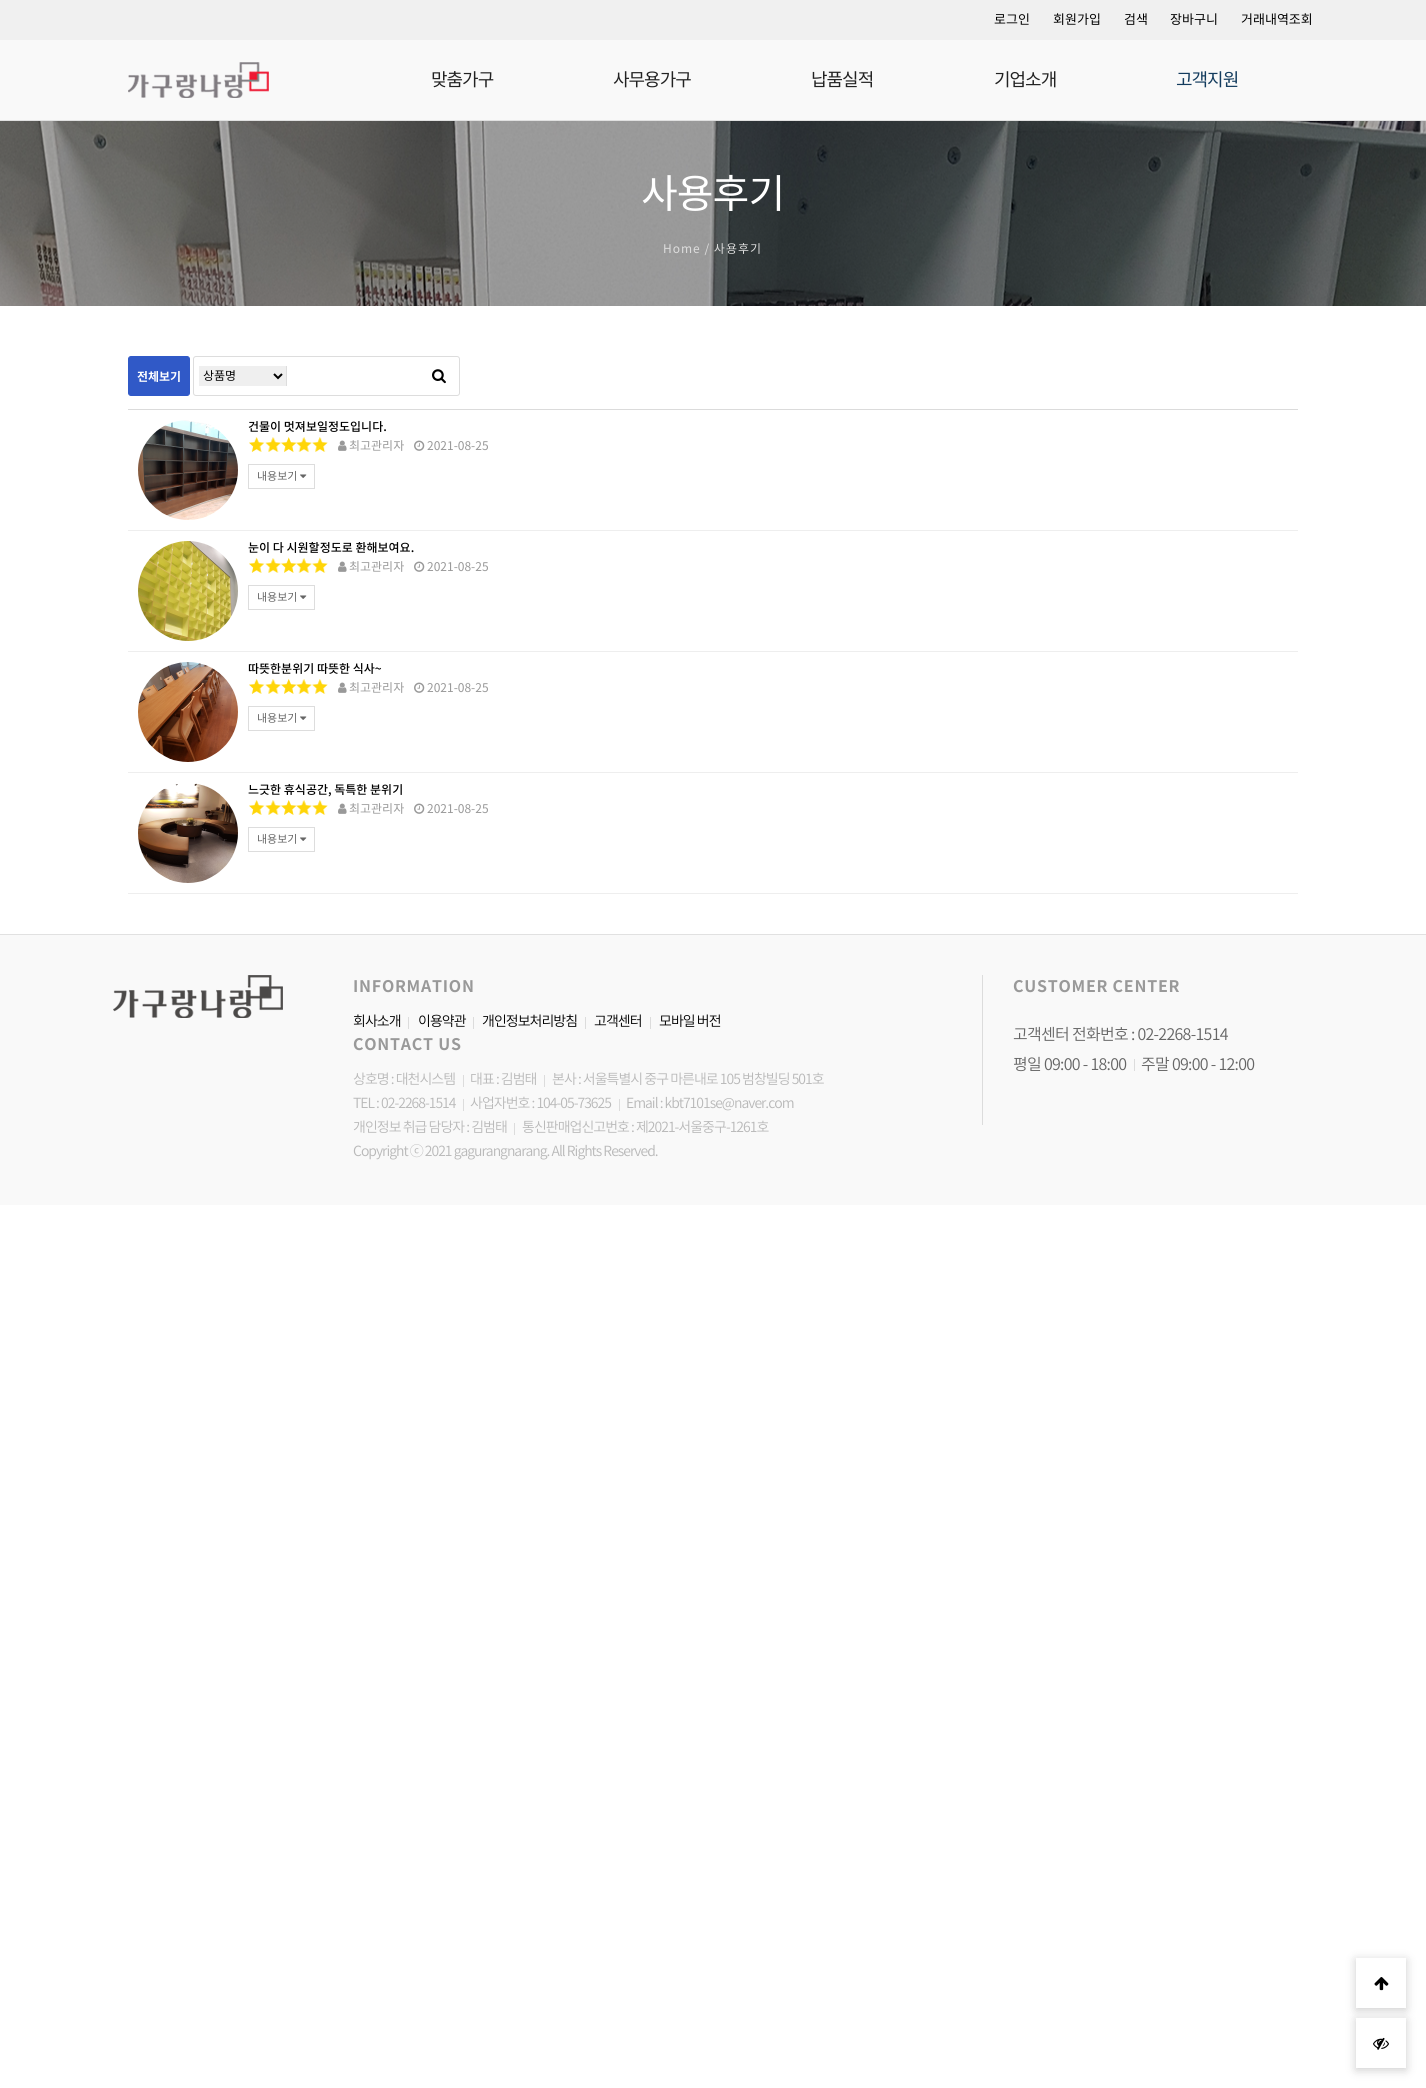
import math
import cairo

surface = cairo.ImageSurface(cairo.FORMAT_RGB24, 1426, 2088)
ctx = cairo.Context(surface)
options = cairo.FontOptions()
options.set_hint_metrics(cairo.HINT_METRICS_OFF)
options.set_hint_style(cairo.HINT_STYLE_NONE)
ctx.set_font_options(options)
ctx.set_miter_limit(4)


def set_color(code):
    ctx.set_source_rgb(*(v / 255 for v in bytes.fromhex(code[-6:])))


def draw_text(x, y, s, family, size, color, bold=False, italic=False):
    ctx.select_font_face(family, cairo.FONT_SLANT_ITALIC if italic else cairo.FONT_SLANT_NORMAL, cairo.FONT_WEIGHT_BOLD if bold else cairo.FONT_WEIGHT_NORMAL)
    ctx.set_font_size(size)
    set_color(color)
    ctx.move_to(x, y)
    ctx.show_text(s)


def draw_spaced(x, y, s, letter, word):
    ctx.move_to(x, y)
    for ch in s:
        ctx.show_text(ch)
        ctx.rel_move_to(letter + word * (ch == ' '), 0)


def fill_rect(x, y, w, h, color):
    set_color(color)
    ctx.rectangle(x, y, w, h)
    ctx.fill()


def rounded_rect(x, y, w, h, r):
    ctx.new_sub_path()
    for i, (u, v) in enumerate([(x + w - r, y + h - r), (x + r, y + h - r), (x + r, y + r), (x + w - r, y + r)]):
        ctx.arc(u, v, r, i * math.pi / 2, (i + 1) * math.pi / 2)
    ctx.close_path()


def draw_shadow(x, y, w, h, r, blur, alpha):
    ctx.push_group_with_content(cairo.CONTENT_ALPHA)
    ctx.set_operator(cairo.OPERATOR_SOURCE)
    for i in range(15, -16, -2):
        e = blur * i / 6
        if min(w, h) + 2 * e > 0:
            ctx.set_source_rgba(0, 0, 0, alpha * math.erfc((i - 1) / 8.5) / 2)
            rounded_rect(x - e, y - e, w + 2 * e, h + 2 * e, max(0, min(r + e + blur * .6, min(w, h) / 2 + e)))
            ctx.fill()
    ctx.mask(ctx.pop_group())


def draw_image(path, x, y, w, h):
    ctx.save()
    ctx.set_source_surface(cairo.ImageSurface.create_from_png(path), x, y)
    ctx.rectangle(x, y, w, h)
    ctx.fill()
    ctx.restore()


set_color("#ffffff")
ctx.paint()
fill_rect(0, 0, 1426, 40, "#f0f0f0")
draw_text(994, 24, "로그인", "Noto Sans KR", 13, "#000000")
draw_text(1053, 24, "회원가입", "Noto Sans KR", 13, "#000000")
draw_text(1124, 24, "검색", "Noto Sans KR", 13, "#000000")
draw_text(1170, 24, "장바구니", "Noto Sans KR", 13, "#000000")
draw_text(1241, 24, "거래내역조회", "Noto Sans KR", 13, "#000000")
fill_rect(0, 40, 1426, 80, "#f9f9f9")
fill_rect(0, 120, 1426, 1, "#e1e1e1")
draw_image("assets/img1.png", 128, 62, 141, 36)
ctx.set_font_size(18)
set_color("#222222")
draw_spaced(431, 86, "맞춤가구", -1, 0)
draw_spaced(613, 86, "사무용가구", -1, 0)
draw_spaced(811, 86, "납품실적", -1, 0)
draw_spaced(994, 86, "기업소개", -1, 0)
set_color("#133c5e")
draw_spaced(1176, 86, "고객지원", -1, 0)
draw_image("assets/img2.png", 0, 121, 1426, 185)
ctx.set_font_size(40)
set_color("#ffffff")
draw_spaced(641, 208, "사용후기", -1, 0)
ctx.set_font_size(12)
set_color("#dddddd")
draw_spaced(663, 253, "Home / 사용후기", 1, 0)
set_color("#3059c7")
rounded_rect(128.5, 356.5, 61, 39, 2.5)
ctx.fill_preserve()
ctx.set_line_width(1)
ctx.stroke()
draw_text(137, 381, "전체보기", "Noto Sans KR", 12, "#ffffff", bold=True)
rounded_rect(193.5, 356.5, 266, 39, 2.5)
set_color("#dddddd")
ctx.stroke()
fill_rect(199, 366, 87, 20, "#efefef")
fill_rect(286, 366, 1, 20, "#dddddd")
ctx.new_path()
ctx.move_to(274, 374)
ctx.line_to(278, 378)
ctx.line_to(282, 374)
set_color("#000000")
ctx.set_line_width(2)
ctx.stroke()
draw_text(203, 380, "상품명", "Noto Sans KR", 12, "#000000")
draw_image("assets/img3.png", 432, 369, 14, 15)
fill_rect(128, 409, 1170, 1, "#dbdbdb")
fill_rect(128, 530, 1170, 1, "#eeeeee")
draw_image("assets/img4.png", 138, 420, 100, 100)
draw_text(248, 431, "건물이 멋져보일정도입니다.", "Noto Sans KR Medium", 12, "#000000")
draw_image("assets/img5.png", 249, 437, 79, 15)
draw_image("assets/img6.png", 338, 440, 9, 11)
draw_text(349, 450, "최고관리자", "Noto Sans KR", 12, "#999999")
draw_image("assets/img7.png", 414, 440, 11, 11)
draw_text(427, 450, "2021-08-25", "Noto Sans KR", 12, "#999999")
ctx.rectangle(248.5, 464.5, 66, 24)
set_color("#dddddd")
ctx.set_line_width(1)
ctx.stroke()
draw_text(257, 480, "내용보기", "Noto Sans KR", 11, "#666666")
draw_image("assets/img8.png", 300, 474, 7, 4)
fill_rect(128, 651, 1170, 1, "#eeeeee")
draw_image("assets/img9.png", 138, 541, 100, 100)
draw_text(248, 552, "눈이 다 시원할정도로 환해보여요.", "Noto Sans KR Medium", 12, "#000000")
draw_image("assets/img5.png", 249, 558, 79, 15)
draw_image("assets/img6.png", 338, 561, 9, 11)
draw_text(349, 571, "최고관리자", "Noto Sans KR", 12, "#999999")
draw_image("assets/img7.png", 414, 561, 11, 11)
draw_text(427, 571, "2021-08-25", "Noto Sans KR", 12, "#999999")
ctx.rectangle(248.5, 585.5, 66, 24)
set_color("#dddddd")
ctx.stroke()
draw_text(257, 601, "내용보기", "Noto Sans KR", 11, "#666666")
draw_image("assets/img8.png", 300, 595, 7, 4)
fill_rect(128, 772, 1170, 1, "#eeeeee")
draw_image("assets/img10.png", 138, 662, 100, 100)
draw_text(248, 673, "따뜻한분위기 따뜻한 식사~", "Noto Sans KR Medium", 12, "#000000")
draw_image("assets/img5.png", 249, 679, 79, 15)
draw_image("assets/img6.png", 338, 682, 9, 11)
draw_text(349, 692, "최고관리자", "Noto Sans KR", 12, "#999999")
draw_image("assets/img7.png", 414, 682, 11, 11)
draw_text(427, 692, "2021-08-25", "Noto Sans KR", 12, "#999999")
ctx.rectangle(248.5, 706.5, 66, 24)
set_color("#dddddd")
ctx.stroke()
draw_text(257, 722, "내용보기", "Noto Sans KR", 11, "#666666")
draw_image("assets/img8.png", 300, 716, 7, 4)
fill_rect(128, 893, 1170, 1, "#eeeeee")
draw_image("assets/img11.png", 138, 783, 100, 100)
draw_text(248, 794, "느긋한 휴식공간, 독특한 분위기", "Noto Sans KR Medium", 12, "#000000")
draw_image("assets/img5.png", 249, 800, 79, 15)
draw_image("assets/img6.png", 338, 803, 9, 11)
draw_text(349, 813, "최고관리자", "Noto Sans KR", 12, "#999999")
draw_image("assets/img7.png", 414, 803, 11, 11)
draw_text(427, 813, "2021-08-25", "Noto Sans KR", 12, "#999999")
ctx.rectangle(248.5, 827.5, 66, 24)
set_color("#dddddd")
ctx.stroke()
draw_text(257, 843, "내용보기", "Noto Sans KR", 11, "#666666")
draw_image("assets/img8.png", 300, 837, 7, 4)
fill_rect(0, 935, 1426, 270, "#f9f9f9")
fill_rect(0, 934, 1426, 1, "#e1e1e1")
draw_image("assets/img12.png", 113, 975, 170, 43)
ctx.select_font_face("Noto Sans KR", cairo.FONT_SLANT_NORMAL, cairo.FONT_WEIGHT_BOLD)
ctx.set_font_size(16)
set_color("#999999")
draw_spaced(353, 992, "INFORMATION", 0.75, 0)
fill_rect(982, 975, 1, 150, "#dcdcdc")
ctx.select_font_face("Noto Sans KR Light")
ctx.set_font_size(14)
set_color("#000000")
draw_spaced(353, 1026, "회사소개", -1, 0)
fill_rect(408, 1017, 1, 12, "#dcdcdc")
set_color("#000000")
draw_spaced(418, 1026, "이용약관", -1, 0)
fill_rect(473, 1017, 1, 12, "#dcdcdc")
set_color("#000000")
draw_spaced(482, 1026, "개인정보처리방침", -1, 0)
fill_rect(585, 1017, 1, 12, "#dcdcdc")
set_color("#000000")
draw_spaced(594, 1026, "고객센터", -1, 0)
fill_rect(650, 1017, 1, 12, "#dcdcdc")
set_color("#000000")
draw_spaced(659, 1026, "모바일 버전", -1, 0)
ctx.select_font_face("Noto Sans KR", cairo.FONT_SLANT_NORMAL, cairo.FONT_WEIGHT_BOLD)
ctx.set_font_size(16)
set_color("#999999")
draw_spaced(353, 1050, "CONTACT US", 0.75, 0)
ctx.select_font_face("Noto Sans KR Light")
ctx.set_font_size(14)
set_color("#b9b9b9")
draw_spaced(353, 1084, "상호명 : 대천시스템", -1, 0)
fill_rect(463, 1075, 1, 12, "#dcdcdc")
set_color("#b9b9b9")
draw_spaced(470, 1084, "대표 : 김범태", -1, 0)
fill_rect(544, 1075, 1, 12, "#dcdcdc")
set_color("#b9b9b9")
draw_spaced(552, 1084, "본사 : 서울특별시 중구 마른내로 105 범창빌딩 501호", -1, 0)
draw_spaced(353, 1108, "TEL : 02-2268-1514", -1, 0)
fill_rect(463, 1099, 1, 12, "#dcdcdc")
set_color("#b9b9b9")
draw_spaced(470, 1108, "사업자번호 : 104-05-73625", -1, 0)
fill_rect(619, 1099, 1, 12, "#dcdcdc")
set_color("#b9b9b9")
draw_spaced(626, 1108, "Email : kbt7101se@naver.com", -1, 0)
draw_spaced(353, 1132, "개인정보 취급 담당자 : 김범태", -1, 0)
fill_rect(514, 1123, 1, 12, "#dcdcdc")
set_color("#b9b9b9")
draw_spaced(522, 1132, "통신판매업신고번호 : 제2021-서울중구-1261호", -1, 0)
draw_spaced(353, 1156, "Copyright ⓒ 2021 gagurangnarang. All Rights Reserved.", -1, 0)
ctx.select_font_face("Noto Sans KR", cairo.FONT_SLANT_NORMAL, cairo.FONT_WEIGHT_BOLD)
ctx.set_font_size(16)
set_color("#999999")
draw_spaced(1013, 992, "CUSTOMER CENTER", 0.75, 0)
ctx.select_font_face("Noto Sans KR Light")
set_color("#666666")
draw_spaced(1013, 1040, "고객센터 전화번호 : 02-2268-1514", -0.7, 0)
draw_spaced(1013, 1070, "평일 09:00 - 18:00", -0.7, 0)
fill_rect(1134, 1059, 1, 12, "#dcdcdc")
set_color("#666666")
draw_spaced(1141, 1070, "주말 09:00 - 12:00", -0.7, 0)
ctx.save()
ctx.set_fill_rule(cairo.FILL_RULE_EVEN_ODD)
ctx.new_path()
ctx.move_to(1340, 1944)
ctx.line_to(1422, 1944)
ctx.line_to(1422, 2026)
ctx.line_to(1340, 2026)
ctx.close_path()
ctx.move_to(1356, 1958)
ctx.line_to(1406, 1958)
ctx.line_to(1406, 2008)
ctx.line_to(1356, 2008)
ctx.close_path()
ctx.clip()
set_color("#000000")
draw_shadow(1356, 1960, 50, 50, 0, 5, 0.2)
ctx.restore()
draw_image("assets/img13.png", 1374, 1977, 15, 14)
set_color("#000000")
draw_shadow(1356, 2020, 50, 50, 0, 5, 0.2)
fill_rect(1356, 2018, 50, 50, "#ffffff")
draw_image("assets/img14.png", 1373, 2037, 16, 13)
surface.write_to_png("output.png")
